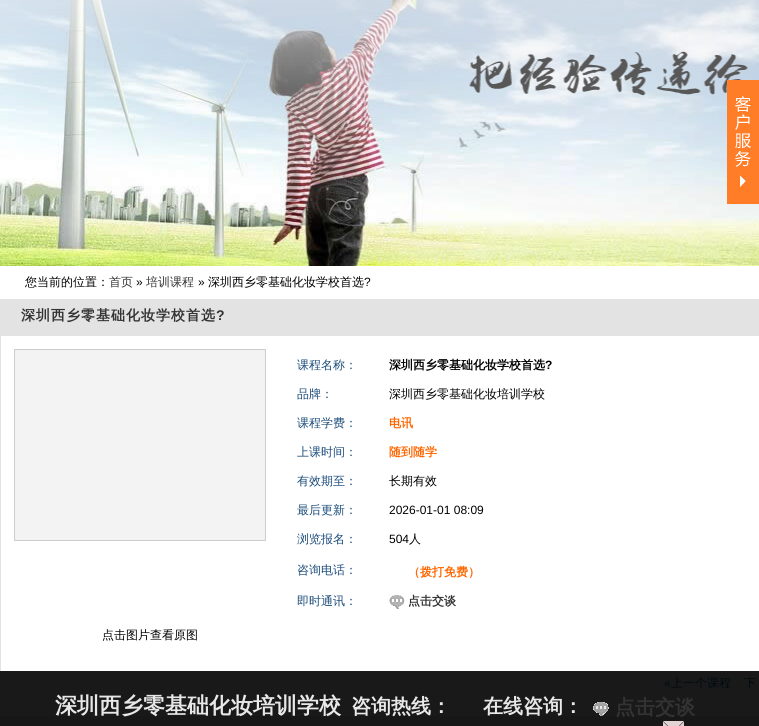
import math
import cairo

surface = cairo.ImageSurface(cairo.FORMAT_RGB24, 759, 726)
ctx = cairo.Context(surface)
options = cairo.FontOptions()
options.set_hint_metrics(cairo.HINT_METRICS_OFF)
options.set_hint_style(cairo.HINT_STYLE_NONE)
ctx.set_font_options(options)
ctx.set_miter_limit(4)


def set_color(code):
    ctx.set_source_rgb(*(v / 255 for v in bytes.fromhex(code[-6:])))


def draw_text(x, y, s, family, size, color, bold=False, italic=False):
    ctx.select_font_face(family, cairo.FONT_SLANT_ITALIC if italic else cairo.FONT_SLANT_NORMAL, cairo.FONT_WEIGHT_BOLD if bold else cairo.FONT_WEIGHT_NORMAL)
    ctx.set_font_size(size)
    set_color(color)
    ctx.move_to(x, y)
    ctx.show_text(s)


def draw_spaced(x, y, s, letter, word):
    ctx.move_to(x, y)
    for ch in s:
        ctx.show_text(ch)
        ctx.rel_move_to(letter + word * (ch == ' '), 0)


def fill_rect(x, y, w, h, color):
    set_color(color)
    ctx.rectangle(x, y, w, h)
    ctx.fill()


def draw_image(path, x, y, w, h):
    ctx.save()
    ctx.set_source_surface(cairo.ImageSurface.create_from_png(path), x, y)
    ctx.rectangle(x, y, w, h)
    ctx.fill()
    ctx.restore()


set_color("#ffffff")
ctx.paint()
fill_rect(0, 671, 759, 45, "#191919")
draw_image("assets/img1.png", 0, 0, 759, 266)
draw_image("assets/img2.png", 727, 80, 32, 124)
draw_text(25, 286, "您当前的位置：", "WenQuanYi Zen Hei Medium", 12, "#000000")
draw_text(109, 286, "首页", "WenQuanYi Zen Hei Medium", 12, "#333333")
draw_text(136, 286, "»", "Liberation Sans", 12, "#000000")
draw_text(146, 286, "培训课程", "WenQuanYi Zen Hei Medium", 12, "#333333")
draw_text(198, 286, "»", "Liberation Sans", 12, "#000000")
draw_text(208, 286, "深圳西乡零基础化妆学校首选", "WenQuanYi Zen Hei Medium", 12, "#000000")
draw_text(364, 286, "?", "Liberation Sans", 12, "#000000")
fill_rect(0, 299, 759, 37, "#e3e3e3")
ctx.select_font_face("WenQuanYi Zen Hei", cairo.FONT_SLANT_NORMAL, cairo.FONT_WEIGHT_BOLD)
ctx.set_font_size(14)
set_color("#333333")
draw_spaced(21, 320, "深圳西乡零基础化妆学校首选", 1, 0)
ctx.select_font_face("Liberation Sans", cairo.FONT_SLANT_NORMAL, cairo.FONT_WEIGHT_BOLD)
draw_spaced(216, 320, "?", 1, 0)
fill_rect(0, 336, 1, 335, "#e3e3e3")
set_color("#f3f3f3")
ctx.rectangle(14.5, 349.5, 251, 191)
ctx.fill_preserve()
set_color("#cccccc")
ctx.set_line_width(1)
ctx.stroke()
draw_text(102, 639, "点击图片查看原图", "WenQuanYi Zen Hei Medium", 12, "#000000")
draw_text(297, 369, "课程名称：", "WenQuanYi Zen Hei Medium", 12, "#1b4c7a")
draw_text(389, 369, "深圳西乡零基础化妆学校首选", "WenQuanYi Zen Hei", 12, "#000000", bold=True)
draw_text(545, 369, "?", "Liberation Sans", 12, "#000000", bold=True)
draw_text(297, 398, "品牌：", "WenQuanYi Zen Hei Medium", 12, "#1b4c7a")
draw_text(389, 398, "深圳西乡零基础化妆培训学校", "WenQuanYi Zen Hei Medium", 12, "#000000")
draw_text(297, 427, "课程学费：", "WenQuanYi Zen Hei Medium", 12, "#1b4c7a")
draw_text(389, 427, "电讯", "WenQuanYi Zen Hei", 12, "#ff6600", bold=True)
draw_text(297, 456, "上课时间：", "WenQuanYi Zen Hei Medium", 12, "#1b4c7a")
draw_text(389, 456, "随到随学", "WenQuanYi Zen Hei", 12, "#ff6600", bold=True)
draw_text(297, 485, "有效期至：", "WenQuanYi Zen Hei Medium", 12, "#1b4c7a")
draw_text(389, 485, "长期有效", "WenQuanYi Zen Hei Medium", 12, "#000000")
draw_text(297, 514, "最后更新：", "WenQuanYi Zen Hei Medium", 12, "#1b4c7a")
draw_text(389, 514, "2026-01-01 08:09", "Liberation Sans", 12, "#000000")
draw_text(297, 543, "浏览报名：", "WenQuanYi Zen Hei Medium", 12, "#1b4c7a")
draw_text(389, 543, "504", "Liberation Sans", 12, "#000000")
draw_text(409, 543, "人", "WenQuanYi Zen Hei Medium", 12, "#000000")
draw_text(297, 574, "咨询电话：", "WenQuanYi Zen Hei Medium", 12, "#1b4c7a")
draw_text(408, 576, "（拨打免费）", "WenQuanYi Zen Hei", 12, "#ff6600", bold=True)
draw_text(297, 605, "即时通讯：", "WenQuanYi Zen Hei Medium", 12, "#1b4c7a")
draw_image("assets/img3.png", 389, 595, 16, 14)
draw_text(408, 605, "点击交谈", "WenQuanYi Zen Hei", 12, "#333333", bold=True)
draw_text(664, 687, "«", "Liberation Sans", 12, "#000a0f")
draw_text(671, 687, "上一个课程", "WenQuanYi Zen Hei Medium", 12, "#000a0f")
draw_text(744, 687, "下", "WenQuanYi Zen Hei Medium", 12, "#000a0f")
fill_rect(0, 716, 759, 10, "#171717")
draw_text(55, 713, "深圳西乡零基础化妆培训学校", "WenQuanYi Zen Hei", 22, "#e8e8e8", bold=True)
draw_text(351, 713, "咨询热线：", "WenQuanYi Zen Hei", 20, "#e8e8e8", bold=True)
draw_text(483, 713, "在线咨询：", "WenQuanYi Zen Hei", 20, "#e8e8e8", bold=True)
draw_image("assets/img4.png", 593, 702, 16, 14)
draw_text(615, 714, "点击交谈", "WenQuanYi Zen Hei", 20, "#333333", bold=True)
draw_image("assets/img5.png", 663, 721, 21, 5)
surface.write_to_png("output.png")
